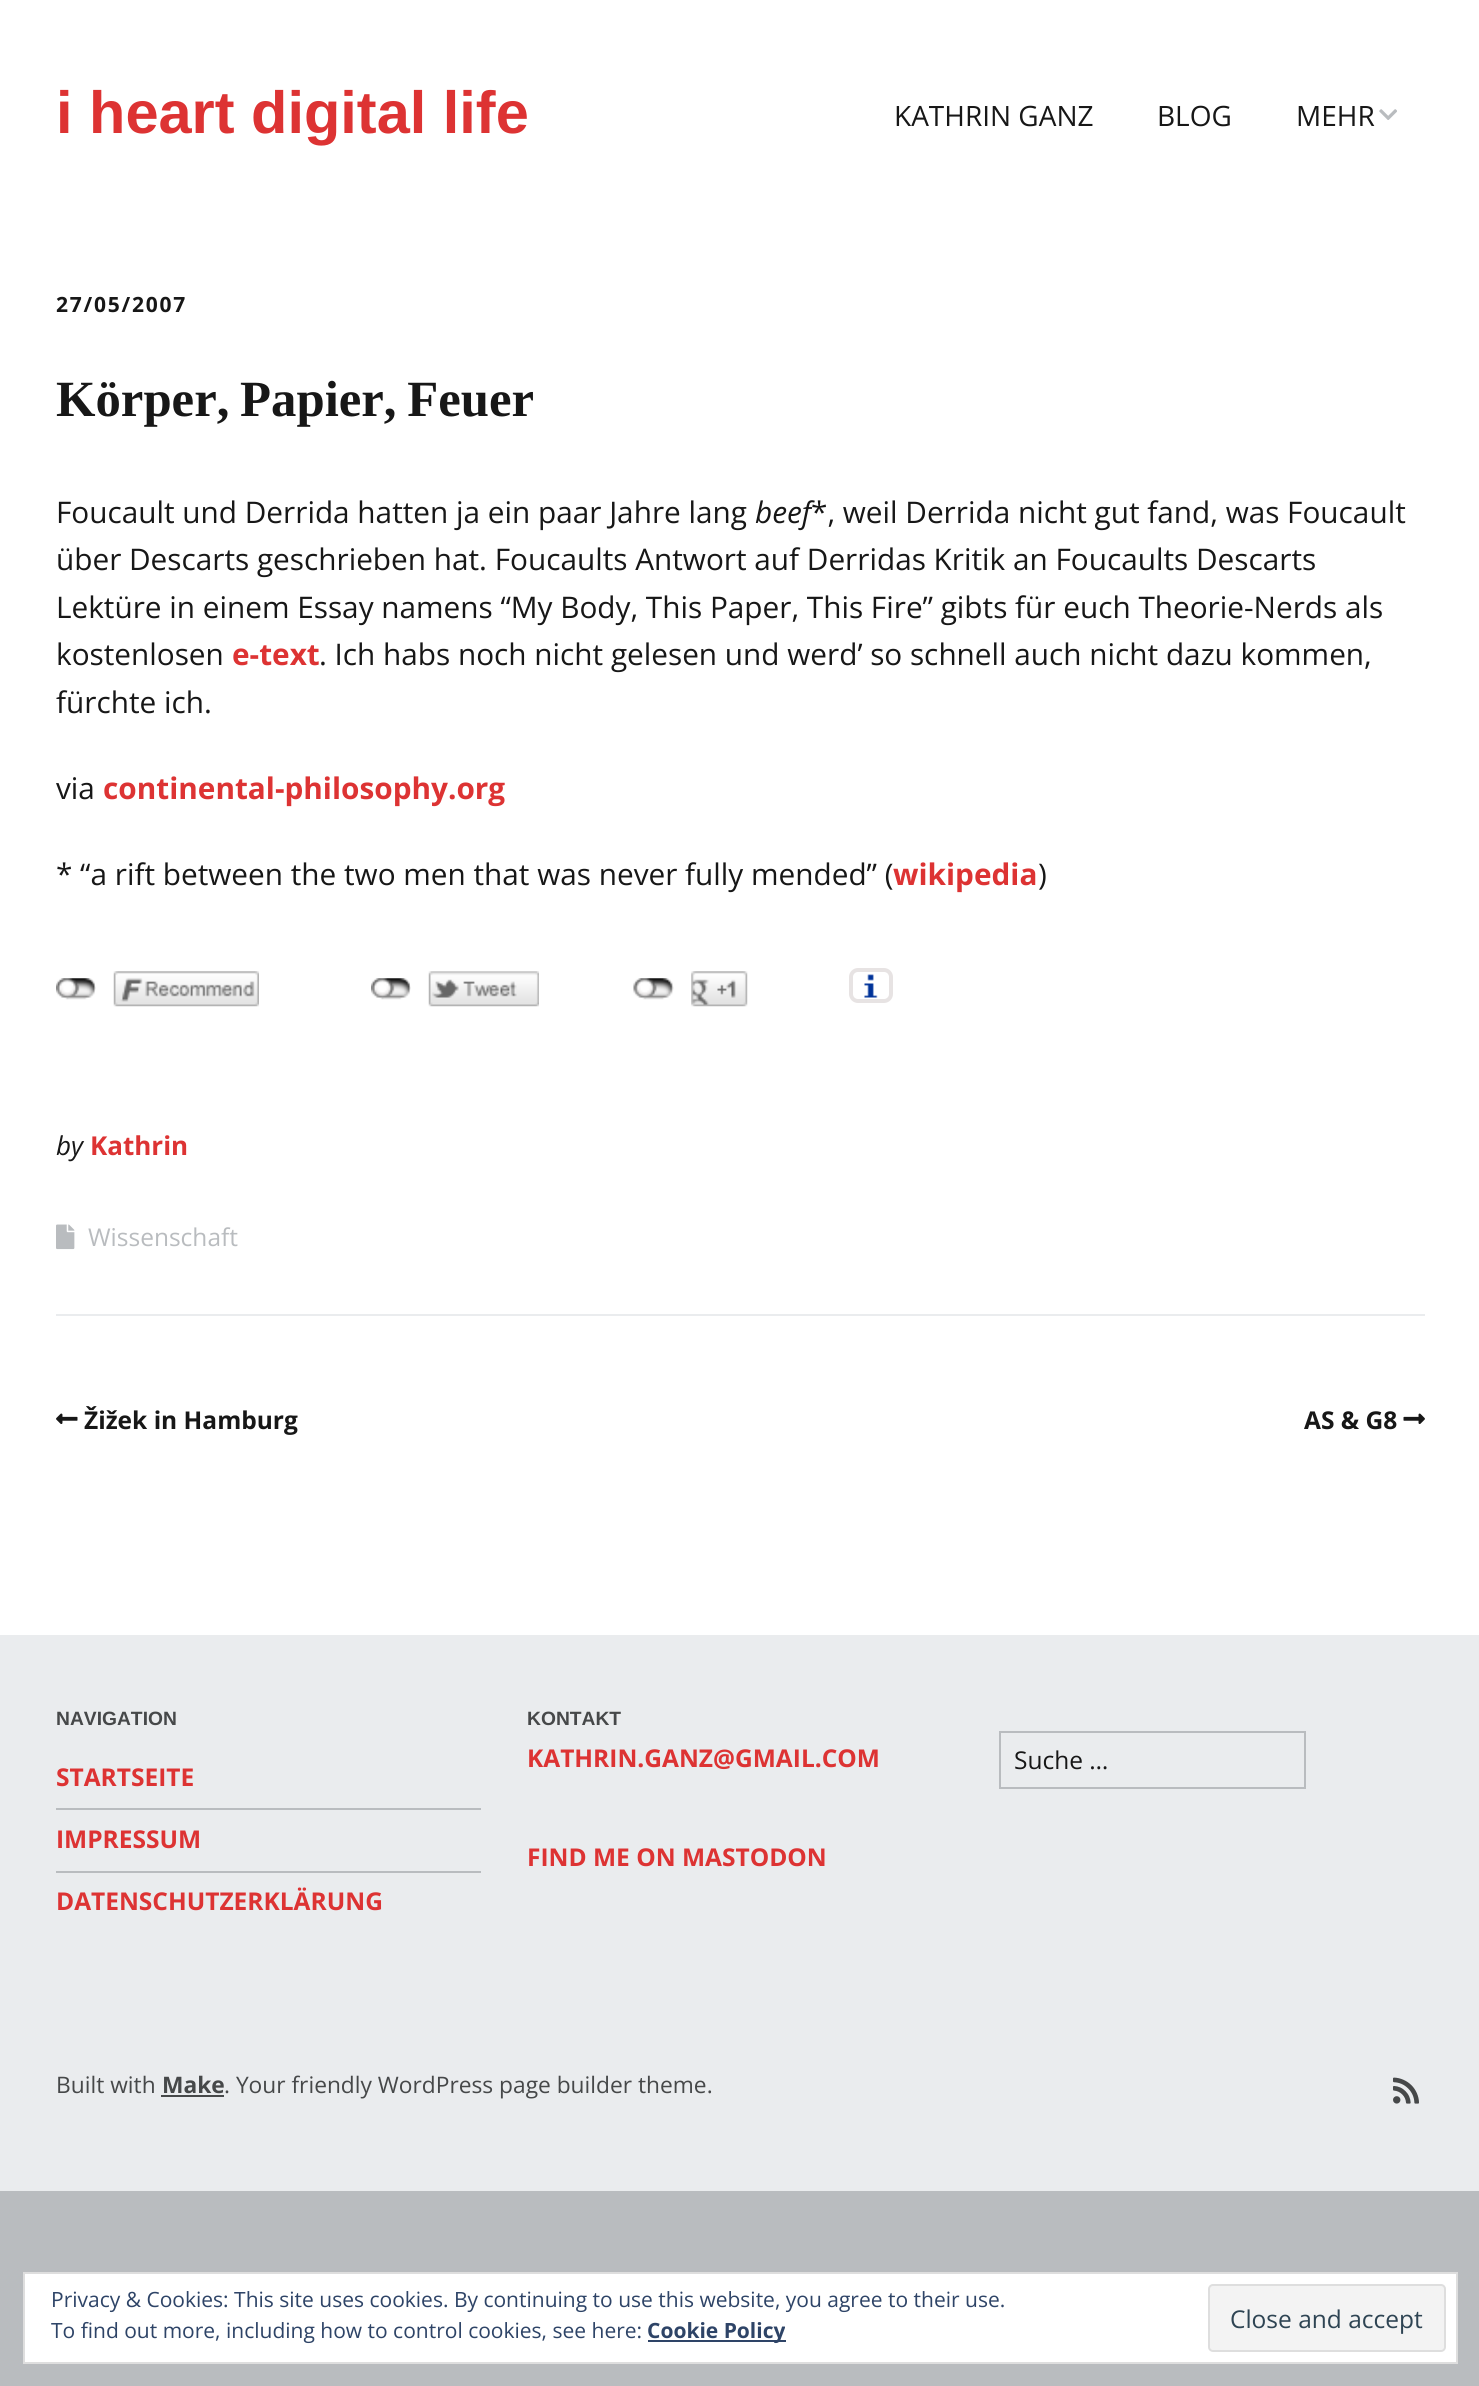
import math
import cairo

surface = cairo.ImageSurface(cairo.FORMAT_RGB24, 1479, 2386)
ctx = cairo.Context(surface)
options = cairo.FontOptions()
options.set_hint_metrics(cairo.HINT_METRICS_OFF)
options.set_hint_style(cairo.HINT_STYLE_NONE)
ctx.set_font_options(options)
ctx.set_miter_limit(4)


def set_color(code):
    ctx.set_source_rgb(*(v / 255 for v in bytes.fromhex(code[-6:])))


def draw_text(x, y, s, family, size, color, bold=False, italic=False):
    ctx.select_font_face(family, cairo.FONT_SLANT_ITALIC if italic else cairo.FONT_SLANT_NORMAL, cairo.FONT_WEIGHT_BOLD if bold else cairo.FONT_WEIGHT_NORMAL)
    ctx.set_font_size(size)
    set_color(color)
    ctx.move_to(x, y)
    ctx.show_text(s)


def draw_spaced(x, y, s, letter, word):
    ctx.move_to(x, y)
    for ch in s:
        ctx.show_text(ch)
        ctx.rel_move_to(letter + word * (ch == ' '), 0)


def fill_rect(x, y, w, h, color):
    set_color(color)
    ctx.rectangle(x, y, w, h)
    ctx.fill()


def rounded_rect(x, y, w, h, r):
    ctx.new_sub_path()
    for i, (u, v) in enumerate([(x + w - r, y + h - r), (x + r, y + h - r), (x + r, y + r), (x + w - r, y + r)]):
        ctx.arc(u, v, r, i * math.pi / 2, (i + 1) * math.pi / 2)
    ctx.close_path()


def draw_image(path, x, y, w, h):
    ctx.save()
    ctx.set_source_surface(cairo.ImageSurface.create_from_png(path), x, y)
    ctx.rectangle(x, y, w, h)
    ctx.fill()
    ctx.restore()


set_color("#b9bcbf")
ctx.paint()
fill_rect(0, 0, 1479, 1635, "#ffffff")
draw_text(56, 133, "i heart digital life", "Liberation Sans", 59.5, "#dd3333", bold=True)
draw_text(894, 126, "KATHRIN GANZ", "Open Sans", 28, "#171717")
draw_text(1157, 126, "BLOG", "Open Sans", 28, "#171717")
draw_text(1296, 126, "MEHR", "Open Sans", 28, "#171717")
draw_image("assets/img1.png", 1379, 109, 18, 11)
fill_rect(56, 1314, 1369, 2, "#eaecee")
ctx.select_font_face("Open Sans", cairo.FONT_SLANT_NORMAL, cairo.FONT_WEIGHT_BOLD)
ctx.set_font_size(21)
set_color("#171717")
draw_spaced(56, 312, "27/05/2007", 1.75, 0)
ctx.select_font_face("Liberation Serif", cairo.FONT_SLANT_NORMAL, cairo.FONT_WEIGHT_BOLD)
ctx.set_font_size(50.75)
draw_spaced(56, 416, "Körper, Papier, Feuer", 0, -2)
draw_text(56, 523, "Foucault und Derrida hatten ja ein paar Jahre lang", "Open Sans", 29.75, "#171717")
draw_text(755, 523, "beef", "Open Sans", 29.75, "#171717", italic=True)
draw_text(811, 523, "*, weil Derrida nicht gut fand, was Foucault", "Open Sans", 29.75, "#171717")
draw_text(56, 570, "über Descarts geschrieben hat. Foucaults Antwort auf Derridas Kritik an Foucaults Descarts", "Open Sans", 29.75, "#171717")
draw_text(56, 618, "Lektüre in einem Essay namens “My Body, This Paper, This Fire” gibts für euch Theorie-Nerds als", "Open Sans", 29.75, "#171717")
draw_text(56, 665, "kostenlosen", "Open Sans", 29.75, "#171717")
draw_text(232, 665, "e-text", "Open Sans", 29.75, "#dd3333", bold=True)
draw_text(319, 665, ". Ich habs noch nicht gelesen und werd’ so schnell auch nicht dazu kommen,", "Open Sans", 29.75, "#171717")
draw_text(56, 713, "fürchte ich.", "Open Sans", 29.75, "#171717")
draw_text(56, 799, "via", "Open Sans", 29.75, "#171717")
draw_text(103, 799, "continental-philosophy.org", "Open Sans", 29.75, "#dd3333", bold=True)
draw_text(56, 885, "* “a rift between the two men that was never fully mended” (", "Open Sans", 29.75, "#171717")
draw_text(893, 885, "wikipedia", "Open Sans", 29.75, "#dd3333", bold=True)
draw_text(1038, 885, ")", "Open Sans", 29.75, "#171717")
draw_image("assets/img2.png", 56, 978, 40, 22)
draw_image("assets/img3.png", 113, 971, 146, 36)
draw_image("assets/img4.png", 371, 978, 40, 22)
draw_image("assets/img5.png", 428, 971, 111, 36)
draw_image("assets/img6.png", 633, 978, 41, 22)
draw_image("assets/img7.png", 691, 971, 57, 36)
draw_image("assets/img8.png", 864, 974, 14, 24)
rounded_rect(851, 970, 40, 31, 7)
set_color("#e7e3e3")
ctx.set_line_width(4)
ctx.stroke()
draw_text(56, 1155, "by", "Open Sans", 26, "#171717", italic=True)
draw_text(90, 1155, "Kathrin", "Open Sans", 26, "#dd3333", bold=True)
draw_image("assets/img9.png", 56, 1224, 19, 26)
draw_text(88, 1246, "Wissenschaft", "Open Sans", 24.5, "#b9bcbf")
draw_image("assets/img10.png", 56, 1413, 22, 11)
draw_text(84, 1429, "Žižek in Hamburg", "Open Sans", 24.5, "#171717", bold=True)
draw_text(1304, 1429, "AS & G8", "Open Sans", 24.5, "#171717", bold=True)
draw_image("assets/img11.png", 1403, 1413, 22, 11)
fill_rect(0, 1635, 1479, 556, "#eaecee")
draw_text(56, 1725, "NAVIGATION", "Liberation Sans", 19.25, "#464849", bold=True)
fill_rect(56, 1808, 425, 2, "#b9bcbf")
draw_text(56, 1786, "STARTSEITE", "Open Sans", 24.5, "#dd3333", bold=True)
fill_rect(56, 1871, 425, 2, "#b9bcbf")
draw_text(56, 1848, "IMPRESSUM", "Open Sans", 24.5, "#dd3333", bold=True)
draw_text(56, 1910, "DATENSCHUTZERKLÄRUNG", "Open Sans", 24.5, "#dd3333", bold=True)
draw_text(527, 1725, "KONTAKT", "Liberation Sans", 19.25, "#464849", bold=True)
draw_text(527, 1767, "KATHRIN.GANZ@GMAIL.COM", "Open Sans", 24.5, "#dd3333", bold=True)
draw_text(527, 1866, "FIND ME ON MASTODON", "Open Sans", 24.5, "#dd3333", bold=True)
ctx.rectangle(1000, 1732, 305, 56)
set_color("#b9bcbf")
ctx.set_line_width(2)
ctx.stroke()
draw_text(1014, 1769, "Suche …", "Open Sans", 24.5, "#171717")
draw_text(56, 2093, "Built with", "Open Sans", 22.75, "#464849")
draw_text(162, 2093, "Make", "Open Sans", 22.75, "#464849", bold=True)
fill_rect(161, 2095, 63, 2, "#464849")
draw_text(224, 2093, ". Your friendly WordPress page builder theme.", "Open Sans", 22.75, "#464849")
draw_image("assets/img12.png", 1393, 2077, 26, 27)
set_color("#ffffff")
ctx.rectangle(24, 2273, 1433, 90)
ctx.fill_preserve()
set_color("#dedede")
ctx.stroke()
draw_text(51, 2307, "Privacy & Cookies: This site uses cookies. By continuing to use this website, you agree to their use.", "Open Sans", 21, "#2e4467")
draw_text(51, 2338, "To find out more, including how to control cookies, see here:", "Open Sans", 21, "#2e4467")
fill_rect(648, 2340, 138, 2, "#2e4467")
draw_text(647, 2338, "Cookie Policy", "Open Sans", 21, "#2e4467", bold=True)
set_color("#f3f3f3")
rounded_rect(1209, 2285, 236, 66, 4)
ctx.fill_preserve()
set_color("#dedede")
ctx.stroke()
draw_text(1230, 2328, "Close and accept", "Open Sans", 24.5, "#2e4453")
surface.write_to_png("output.png")
